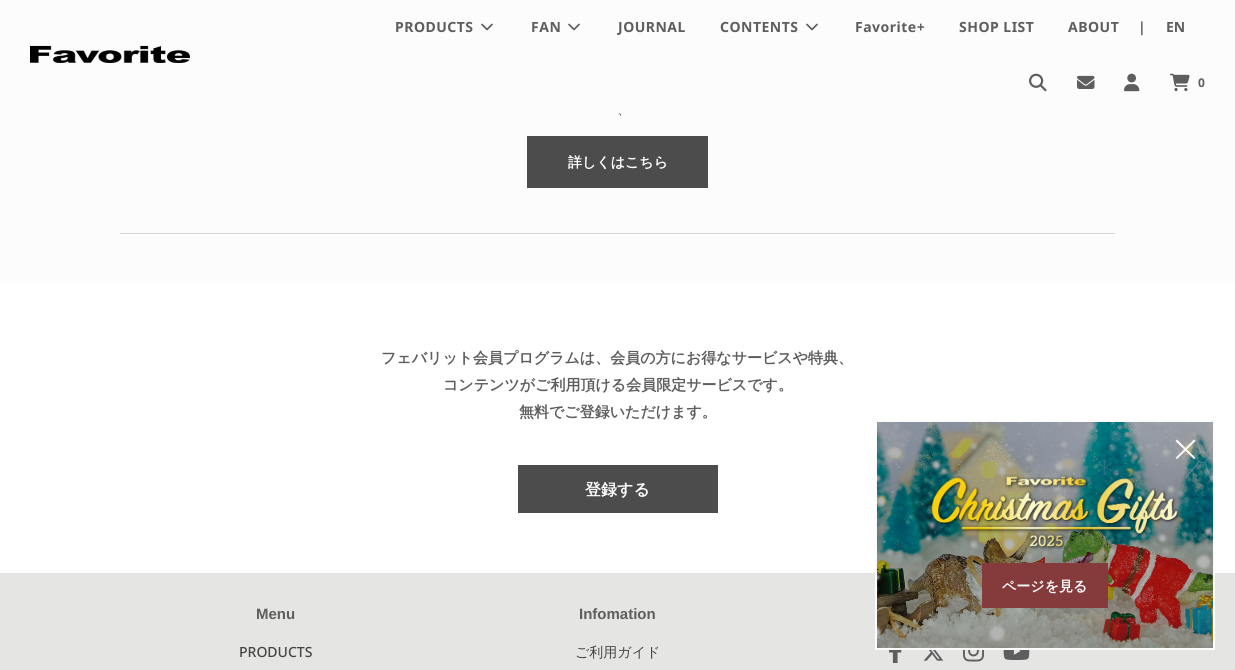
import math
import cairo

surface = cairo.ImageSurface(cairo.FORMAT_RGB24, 1235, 670)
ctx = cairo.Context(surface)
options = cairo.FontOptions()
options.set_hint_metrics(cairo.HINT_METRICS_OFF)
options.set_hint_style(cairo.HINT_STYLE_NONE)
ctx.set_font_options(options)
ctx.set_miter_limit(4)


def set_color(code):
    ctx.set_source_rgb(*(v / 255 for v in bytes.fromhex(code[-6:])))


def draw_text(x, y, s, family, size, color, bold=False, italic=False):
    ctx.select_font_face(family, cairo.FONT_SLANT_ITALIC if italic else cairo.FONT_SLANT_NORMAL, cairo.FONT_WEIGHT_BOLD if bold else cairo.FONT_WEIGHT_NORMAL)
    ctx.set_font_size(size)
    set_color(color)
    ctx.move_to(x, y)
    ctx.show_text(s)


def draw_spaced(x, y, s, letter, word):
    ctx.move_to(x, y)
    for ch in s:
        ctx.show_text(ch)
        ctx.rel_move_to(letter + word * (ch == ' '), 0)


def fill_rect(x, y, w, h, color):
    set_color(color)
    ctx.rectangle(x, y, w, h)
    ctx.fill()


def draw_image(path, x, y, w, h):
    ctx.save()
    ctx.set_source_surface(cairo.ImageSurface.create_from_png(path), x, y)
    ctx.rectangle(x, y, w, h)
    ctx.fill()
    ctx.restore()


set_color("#fcfcfc")
ctx.paint()
draw_image("assets/img1.png", 30, 45, 160, 18)
ctx.select_font_face("Noto Sans", cairo.FONT_SLANT_NORMAL, cairo.FONT_WEIGHT_BOLD)
ctx.set_font_size(14)
set_color("#5e5e5e")
draw_spaced(395, 32, "PRODUCTS", 0.5, 0)
ctx.new_path()
ctx.move_to(482, 24.5)
ctx.line_to(487, 29.5)
ctx.line_to(492, 24.5)
ctx.set_line_width(1.7)
ctx.set_line_cap(cairo.LINE_CAP_ROUND)
ctx.set_line_join(cairo.LINE_JOIN_ROUND)
ctx.stroke()
draw_spaced(531, 32, "FAN", 0.5, 0)
ctx.new_path()
ctx.move_to(569, 24.5)
ctx.line_to(574, 29.5)
ctx.line_to(579, 24.5)
ctx.stroke()
draw_spaced(618, 32, "JOURNAL", 0.5, 0)
draw_spaced(720, 32, "CONTENTS", 0.5, 0)
ctx.new_path()
ctx.move_to(807, 24.5)
ctx.line_to(812, 29.5)
ctx.line_to(817, 24.5)
ctx.stroke()
draw_spaced(855, 32, "Favorite+", 0.5, 0)
draw_spaced(959, 32, "SHOP LIST", 0.5, 0)
draw_spaced(1068, 32, "ABOUT", 0.5, 0)
draw_text(1138, 32, "|", "Noto Sans", 14, "#5e5e5e", bold=True)
draw_text(1166, 32, "EN", "Noto Sans", 14, "#5e5e5e", bold=True)
draw_image("assets/img2.png", 1029, 73, 18, 19)
draw_image("assets/img3.png", 1077, 75, 18, 14)
draw_image("assets/img4.png", 1124, 73, 16, 19)
draw_image("assets/img5.png", 1170, 73, 20, 19)
draw_text(1198, 87, "0", "Noto Sans", 12, "#5e5e5e", bold=True)
fill_rect(120, 233, 995, 1, "#d5d6d7")
draw_text(617, 114, "、", "WenQuanYi Zen Hei Medium", 14, "#5e5e5e")
fill_rect(527, 136, 181, 52, "#4c4c4c")
draw_text(568, 167, "詳しくはこちら", "WenQuanYi Zen Hei", 14, "#ffffff", bold=True)
fill_rect(0, 284, 1235, 289, "#ffffff")
draw_text(381, 363, "フェバリット会員プログラムは、会員の方にお得なサービスや特典、", "WenQuanYi Zen Hei", 15, "#5e5e5e", bold=True)
draw_text(443, 390, "コンテンツがご利用頂ける会員限定サービスです。", "WenQuanYi Zen Hei", 15, "#5e5e5e", bold=True)
draw_text(519, 417, "無料でご登録いただけます。", "WenQuanYi Zen Hei", 15, "#5e5e5e", bold=True)
fill_rect(518, 465, 200, 48, "#4c4c4c")
draw_text(585, 495, "登録する", "WenQuanYi Zen Hei", 16, "#ffffff", bold=True)
fill_rect(0, 573, 1235, 97, "#e5e5e3")
draw_image("assets/img6.png", 877, 422, 336, 226)
ctx.rectangle(876, 421, 338, 228)
set_color("#fcfcfc")
ctx.set_line_width(2)
ctx.set_line_cap(cairo.LINE_CAP_BUTT)
ctx.set_line_join(cairo.LINE_JOIN_MITER)
ctx.stroke()
ctx.new_path()
ctx.move_to(1194, 439.5)
ctx.line_to(1195.5, 441)
ctx.line_to(1177, 459)
ctx.line_to(1175.5, 458)
ctx.close_path()
ctx.fill()
ctx.new_path()
ctx.move_to(1175.5, 441)
ctx.line_to(1177, 439.5)
ctx.line_to(1195.5, 458)
ctx.line_to(1194, 459)
ctx.close_path()
ctx.fill()
draw_image("assets/img7.png", 929, 474, 252, 76)
fill_rect(982, 563, 126, 45, "#853b3b")
draw_text(1002, 591, "ページを見る", "WenQuanYi Zen Hei", 14, "#ffffff", bold=True)
draw_text(256, 619, "Menu", "Liberation Sans", 15, "#5e5e5e", bold=True)
draw_text(239, 657, "PRODUCTS", "Noto Sans Medium", 14, "#454545")
draw_text(579, 619, "Infomation", "Liberation Sans", 15, "#5e5e5e", bold=True)
draw_text(575, 657, "ご利用ガイド", "WenQuanYi Zen Hei Medium", 14, "#454545")
draw_image("assets/img8.png", 889, 650, 13, 13)
draw_image("assets/img9.png", 923, 650, 21, 11)
draw_image("assets/img10.png", 963, 650, 21, 12)
draw_image("assets/img11.png", 1003, 650, 27, 10)
surface.write_to_png("output.png")
